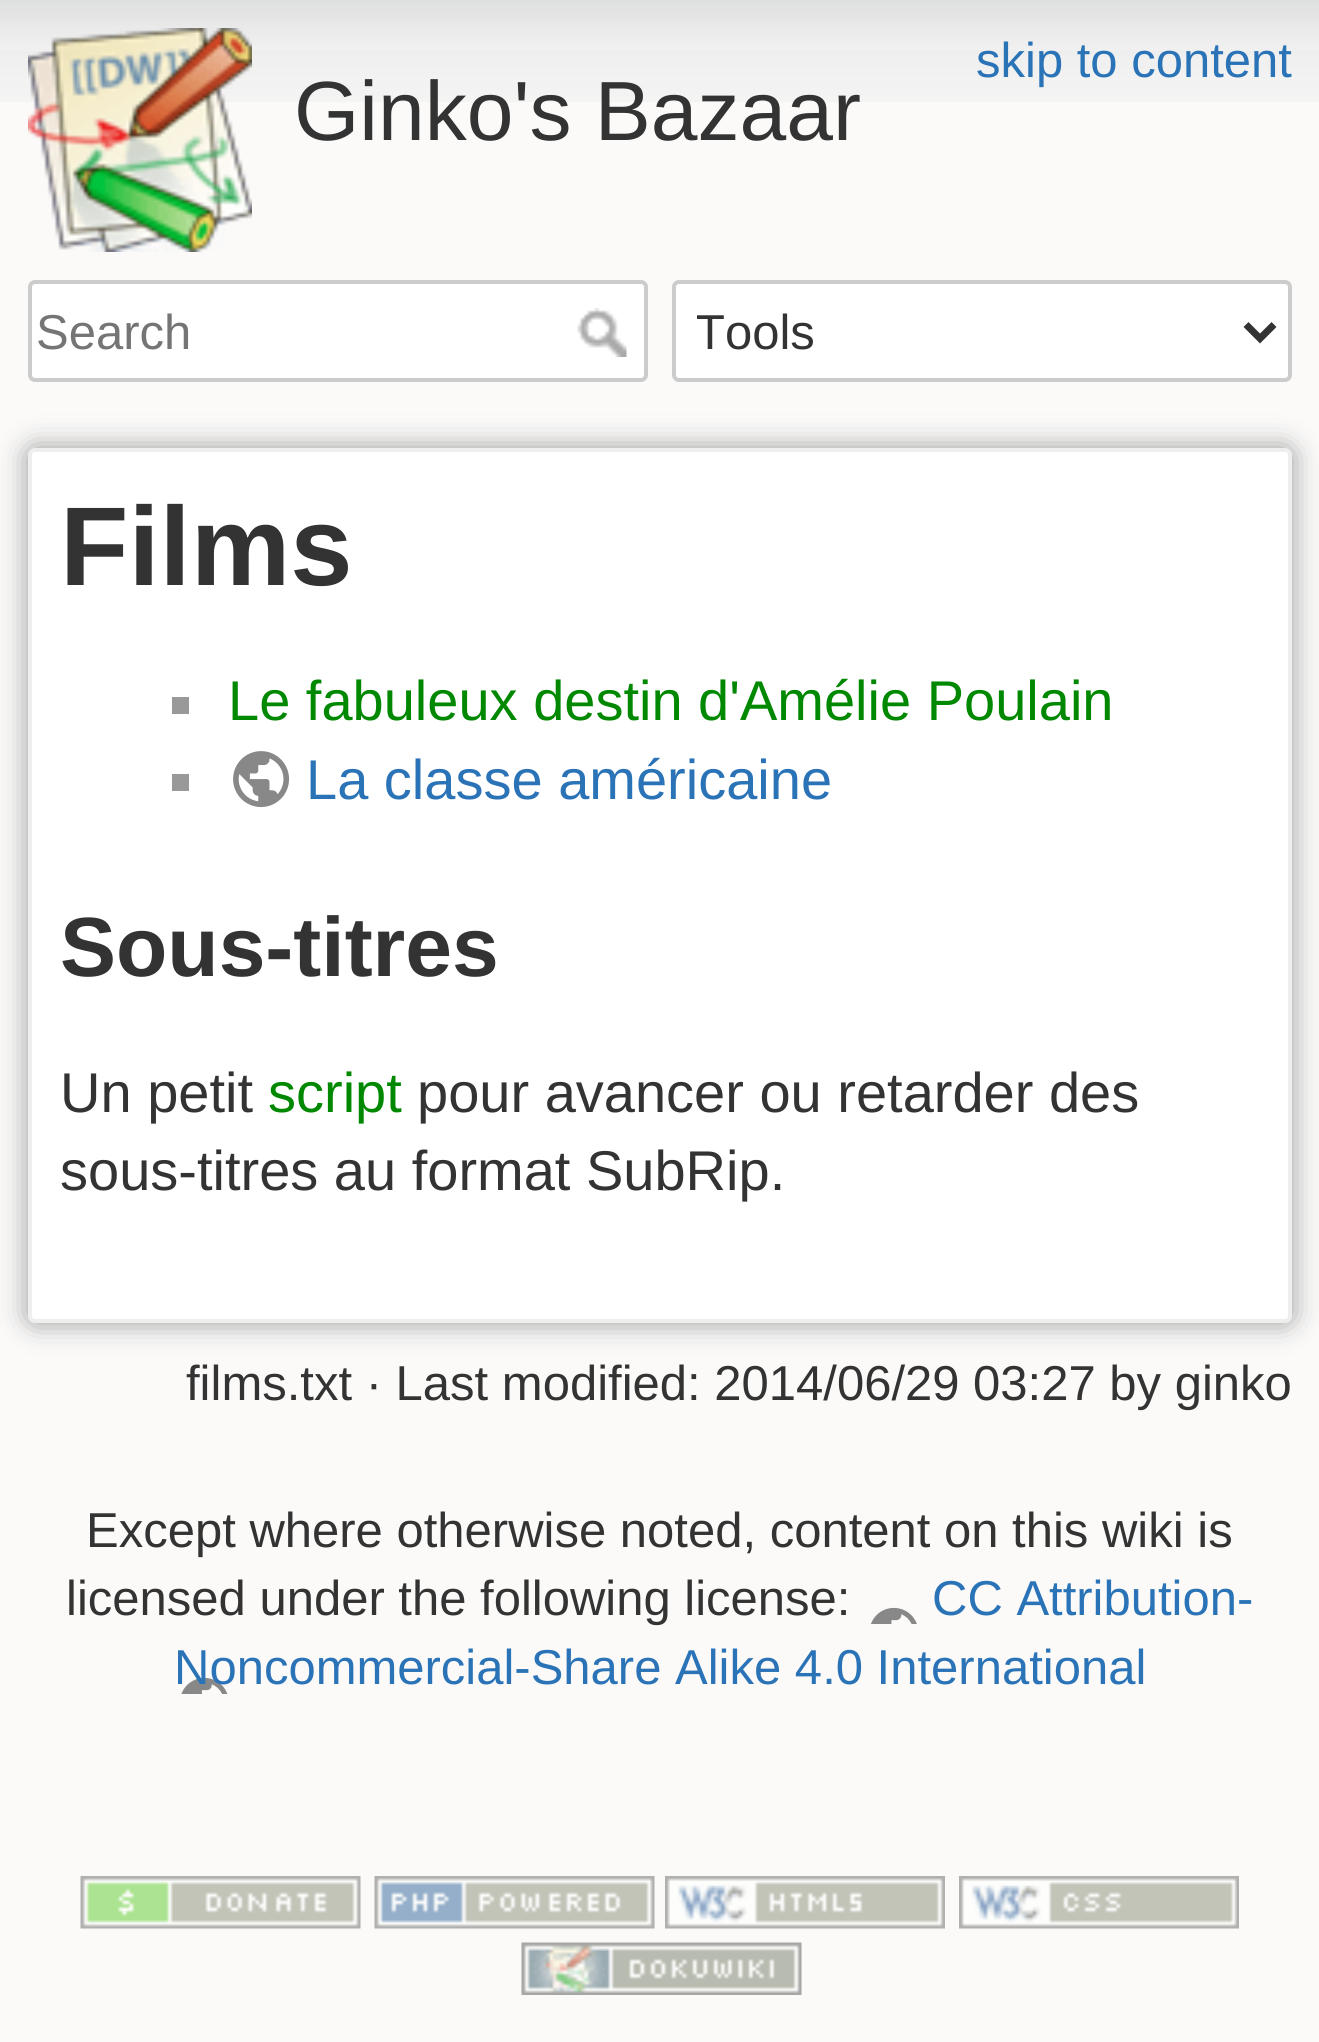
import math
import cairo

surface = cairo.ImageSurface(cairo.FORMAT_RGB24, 1319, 2042)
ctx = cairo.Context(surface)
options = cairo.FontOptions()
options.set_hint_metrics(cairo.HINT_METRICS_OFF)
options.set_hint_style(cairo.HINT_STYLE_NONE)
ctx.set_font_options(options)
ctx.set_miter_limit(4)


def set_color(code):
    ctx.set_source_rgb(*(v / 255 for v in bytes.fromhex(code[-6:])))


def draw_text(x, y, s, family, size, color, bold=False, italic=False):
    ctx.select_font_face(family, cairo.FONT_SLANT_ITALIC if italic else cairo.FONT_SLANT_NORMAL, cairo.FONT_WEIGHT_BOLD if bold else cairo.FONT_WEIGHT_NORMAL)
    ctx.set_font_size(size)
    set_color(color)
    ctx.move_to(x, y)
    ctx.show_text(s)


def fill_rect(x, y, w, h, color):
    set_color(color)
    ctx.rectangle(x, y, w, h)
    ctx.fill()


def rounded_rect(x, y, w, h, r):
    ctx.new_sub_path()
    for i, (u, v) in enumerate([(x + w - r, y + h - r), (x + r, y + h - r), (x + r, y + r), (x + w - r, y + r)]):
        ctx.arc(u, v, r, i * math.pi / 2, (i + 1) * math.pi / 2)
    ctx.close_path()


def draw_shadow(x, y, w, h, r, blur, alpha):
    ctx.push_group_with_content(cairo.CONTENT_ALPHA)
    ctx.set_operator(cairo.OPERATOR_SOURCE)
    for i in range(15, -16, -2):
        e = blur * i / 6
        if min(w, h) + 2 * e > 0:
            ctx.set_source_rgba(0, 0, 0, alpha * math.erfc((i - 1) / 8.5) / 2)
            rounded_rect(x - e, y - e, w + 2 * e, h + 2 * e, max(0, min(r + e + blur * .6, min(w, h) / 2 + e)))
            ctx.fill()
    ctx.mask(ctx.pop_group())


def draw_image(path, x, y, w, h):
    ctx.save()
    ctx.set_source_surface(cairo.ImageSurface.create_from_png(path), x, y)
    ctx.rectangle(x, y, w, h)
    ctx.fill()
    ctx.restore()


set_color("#fbfaf9")
ctx.paint()
draw_image("assets/img1.png", 0, 0, 1319, 102)
draw_text(976, 77, "skip to content", "Liberation Sans", 49, "#2b73b7")
draw_image("assets/img2.png", 28, 28, 224, 224)
draw_text(294, 140, "Ginko's Bazaar", "Liberation Sans", 84, "#333333")
set_color("#ffffff")
rounded_rect(30, 282, 616, 98, 5)
ctx.fill_preserve()
set_color("#cccccc")
ctx.set_line_width(4)
ctx.stroke()
draw_text(36, 349, "Search", "Liberation Sans", 49, "#757575")
draw_image("assets/img3.png", 577, 308, 50, 49)
set_color("#ffffff")
rounded_rect(674, 282, 616, 98, 5)
ctx.fill_preserve()
set_color("#cccccc")
ctx.stroke()
ctx.new_path()
ctx.move_to(1246, 324.5)
ctx.line_to(1260, 338.5)
ctx.line_to(1274, 324.5)
set_color("#333333")
ctx.set_line_width(7)
ctx.stroke()
ctx.save()
ctx.rectangle(697, 301, 532, 63)
ctx.clip()
draw_text(695, 349, "Tools", "Liberation Sans", 49, "#333333")
ctx.restore()
set_color("#999999")
draw_shadow(28, 448, 1264, 875, 7, 14, 1)
set_color("#ffffff")
rounded_rect(30, 450, 1260, 871, 5)
ctx.fill_preserve()
set_color("#eeeeee")
ctx.set_line_width(4)
ctx.stroke()
draw_text(60, 585, "Films", "Liberation Sans", 112, "#333333", bold=True)
fill_rect(172, 697, 17, 17, "#999999")
draw_text(228, 720, "Le fabuleux destin d'Amélie Poulain", "Liberation Sans", 56, "#008800")
fill_rect(172, 774, 17, 17, "#999999")
draw_image("assets/img4.png", 233, 751, 57, 57)
draw_text(306, 799, "La classe américaine", "Liberation Sans", 56, "#2b73b7")
draw_text(60, 976, "Sous-titres", "Liberation Sans", 84, "#333333", bold=True)
draw_text(60, 1112, "Un petit", "Liberation Sans", 56, "#333333")
draw_text(268, 1112, "script", "Liberation Sans", 56, "#008800")
draw_text(417, 1112, "pour avancer ou retarder des", "Liberation Sans", 56, "#333333")
draw_text(60, 1190, "sous-titres au format SubRip.", "Liberation Sans", 56, "#333333")
draw_text(186, 1400, "films.txt · Last modified: 2014/06/29 03:27 by ginko", "Liberation Sans", 49, "#333333")
draw_text(86, 1547, "Except where otherwise noted, content on this wiki is", "Liberation Sans", 49, "#333333")
draw_text(66, 1615, "licensed under the following license:", "Liberation Sans", 49, "#333333")
draw_text(932, 1615, "CC Attribution-", "Liberation Sans", 49, "#2b73b7")
draw_image("assets/img5.png", 181, 1607, 736, 87)
draw_text(174, 1684, "Noncommercial-Share Alike 4.0 International", "Liberation Sans", 49, "#2b73b7")
draw_image("assets/img6.png", 80, 1876, 281, 53)
draw_image("assets/img7.png", 374, 1876, 281, 53)
draw_image("assets/img8.png", 665, 1876, 280, 53)
draw_image("assets/img9.png", 959, 1876, 280, 53)
draw_image("assets/img10.png", 521, 1942, 281, 53)
surface.write_to_png("output.png")
